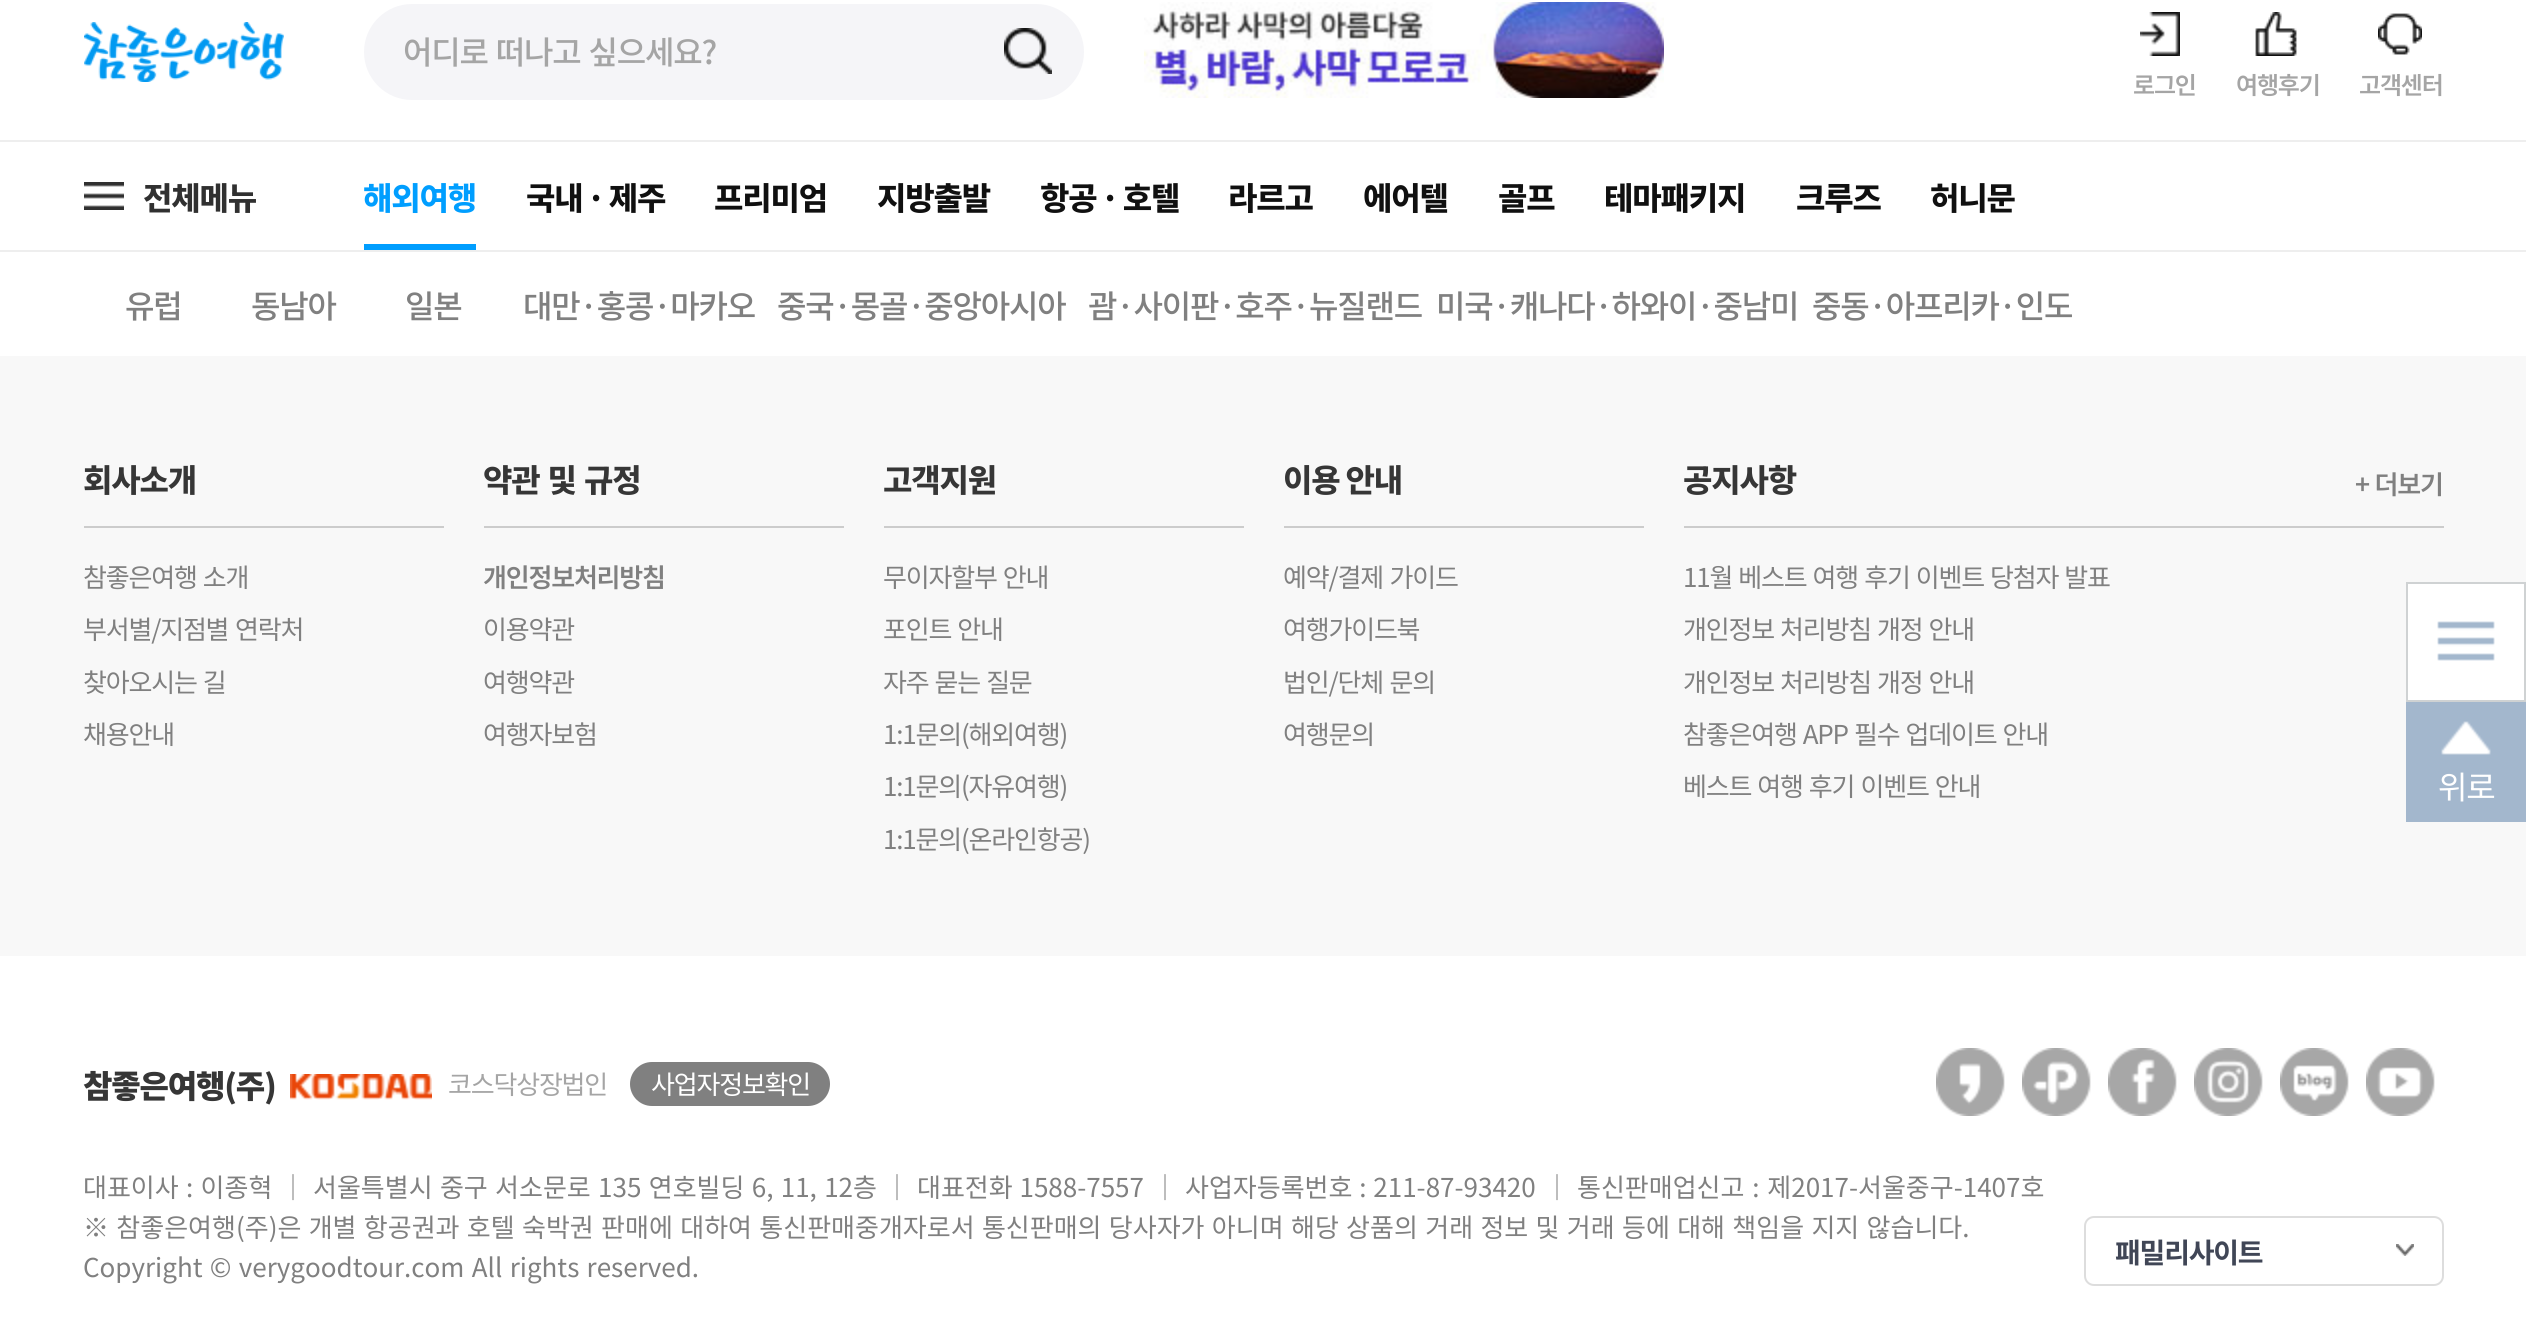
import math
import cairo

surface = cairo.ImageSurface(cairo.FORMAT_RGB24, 2526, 1321)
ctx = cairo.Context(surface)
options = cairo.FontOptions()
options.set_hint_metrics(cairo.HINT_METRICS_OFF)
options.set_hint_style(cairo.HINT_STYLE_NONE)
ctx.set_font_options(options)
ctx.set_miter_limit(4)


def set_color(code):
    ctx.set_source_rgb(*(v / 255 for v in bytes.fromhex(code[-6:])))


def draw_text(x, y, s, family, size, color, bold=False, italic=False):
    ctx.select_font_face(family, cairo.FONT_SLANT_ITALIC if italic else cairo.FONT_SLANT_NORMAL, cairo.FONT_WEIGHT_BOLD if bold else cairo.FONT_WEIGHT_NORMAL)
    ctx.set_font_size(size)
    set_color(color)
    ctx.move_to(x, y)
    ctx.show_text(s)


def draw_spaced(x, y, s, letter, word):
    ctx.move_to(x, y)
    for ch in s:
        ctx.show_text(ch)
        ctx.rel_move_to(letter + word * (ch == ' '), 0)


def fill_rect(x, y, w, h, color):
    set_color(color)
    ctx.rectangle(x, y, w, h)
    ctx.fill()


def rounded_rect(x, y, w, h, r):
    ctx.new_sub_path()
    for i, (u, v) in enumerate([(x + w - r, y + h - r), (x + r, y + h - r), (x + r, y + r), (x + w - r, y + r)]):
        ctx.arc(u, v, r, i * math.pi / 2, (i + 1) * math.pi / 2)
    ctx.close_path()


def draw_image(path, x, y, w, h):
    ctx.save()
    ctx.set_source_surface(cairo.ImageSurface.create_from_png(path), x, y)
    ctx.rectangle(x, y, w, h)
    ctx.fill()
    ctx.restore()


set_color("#ffffff")
ctx.paint()
fill_rect(0, 140, 2526, 2, "#eeeeee")
draw_image("assets/img1.png", 84, 22, 200, 60)
set_color("#f5f5f8")
rounded_rect(364, 4, 720, 96, 48)
ctx.fill()
ctx.select_font_face("Noto Sans KR Medium")
ctx.set_font_size(32)
set_color("#a5a5a5")
draw_spaced(403, 64, "어디로 떠나고 싶으세요?", -1.2, 2)
draw_image("assets/img2.png", 1004, 28, 48, 46)
draw_image("assets/img3.png", 1144, 2, 520, 96)
draw_image("assets/img4.png", 2140, 12, 40, 44)
ctx.select_font_face("Noto Sans KR SemiBold")
ctx.set_font_size(24)
draw_spaced(2133, 94, "로그인", -1.2, 0)
draw_image("assets/img5.png", 2255, 12, 42, 44)
draw_spaced(2236, 94, "여행후기", -1.2, 0)
draw_image("assets/img6.png", 2378, 13, 44, 42)
draw_spaced(2359, 94, "고객센터", -1.2, 0)
fill_rect(0, 250, 2526, 2, "#eeeeee")
draw_image("assets/img7.png", 84, 182, 40, 28)
ctx.select_font_face("Noto Sans KR ExtraBold")
ctx.set_font_size(32)
set_color("#303030")
draw_spaced(143, 210, "전체메뉴", -1.2, 0)
set_color("#009eff")
draw_spaced(363, 210, "해외여행", -1.2, 0)
fill_rect(364, 244, 112, 6, "#009eff")
set_color("#101010")
draw_spaced(526, 210, "국내 · 제주", -1.2, -2)
draw_spaced(714, 210, "프리미엄", -1.2, 0)
draw_spaced(877, 210, "지방출발", -1.2, 0)
draw_spaced(1040, 210, "항공 · 호텔", -1.2, -2)
draw_spaced(1228, 210, "라르고", -1.2, 0)
draw_spaced(1363, 210, "에어텔", -1.2, 0)
draw_spaced(1498, 210, "골프", -1.2, 0)
draw_spaced(1604, 210, "테마패키지", -1.2, 0)
draw_spaced(1796, 210, "크루즈", -1.2, 0)
draw_spaced(1930, 210, "허니문", -1.2, 0)
ctx.select_font_face("Noto Sans KR Medium")
set_color("#808080")
draw_spaced(125, 318, "유럽", -1.2, 0)
draw_spaced(251, 318, "동남아", -1.2, 0)
draw_spaced(405, 318, "일본", -1.2, 0)
draw_spaced(523, 318, "대만·홍콩·마카오", -1.2, 0)
draw_spaced(777, 318, "중국·몽골·중앙아시아", -1.2, 0)
draw_spaced(1088, 318, "괌·사이판·호주·뉴질랜드", -1.2, 0)
draw_spaced(1436, 318, "미국·캐나다·하와이·중남미", -1.2, 0)
draw_spaced(1812, 318, "중동·아프리카·인도", -1.2, 0)
fill_rect(0, 356, 2526, 600, "#f8f8f8")
fill_rect(84, 526, 360, 2, "#cccccc")
ctx.select_font_face("Noto Sans KR ExtraBold")
set_color("#363636")
draw_spaced(83, 492, "회사소개", -1.2, 0)
ctx.select_font_face("Noto Sans KR")
ctx.set_font_size(26)
set_color("#808080")
draw_spaced(83, 587, "참좋은여행 소개", -1.2, 1.5)
draw_spaced(83, 639, "부서별/지점별 연락처", -1.2, 2)
draw_spaced(83, 692, "찾아오시는 길", -1.2, 1.5)
draw_spaced(83, 744, "채용안내", -1.2, 0)
fill_rect(484, 526, 360, 2, "#cccccc")
ctx.select_font_face("Noto Sans KR ExtraBold")
ctx.set_font_size(32)
set_color("#363636")
draw_spaced(483, 492, "약관 및 규정", -1.2, 2)
ctx.select_font_face("Noto Sans KR SemiBold")
ctx.set_font_size(26)
set_color("#808080")
draw_spaced(483, 587, "개인정보처리방침", -1.2, 0)
ctx.select_font_face("Noto Sans KR")
draw_spaced(483, 639, "이용약관", -1.2, 0)
draw_spaced(483, 692, "여행약관", -1.2, 0)
draw_spaced(483, 744, "여행자보험", -1.2, 0)
fill_rect(884, 526, 360, 2, "#cccccc")
ctx.select_font_face("Noto Sans KR ExtraBold")
ctx.set_font_size(32)
set_color("#363636")
draw_spaced(883, 492, "고객지원", -1.2, 0)
ctx.select_font_face("Noto Sans KR")
ctx.set_font_size(26)
set_color("#808080")
draw_spaced(883, 587, "무이자할부 안내", -1.2, 1.5)
draw_spaced(883, 639, "포인트 안내", -1.2, 1.5)
draw_spaced(883, 692, "자주 묻는 질문", -1.2, 1.5)
draw_spaced(883, 744, "1:1문의(해외여행)", -1.2, 0)
draw_spaced(883, 796, "1:1문의(자유여행)", -1.2, 0)
draw_spaced(883, 849, "1:1문의(온라인항공)", -1.2, 0)
fill_rect(1284, 526, 360, 2, "#cccccc")
ctx.select_font_face("Noto Sans KR ExtraBold")
ctx.set_font_size(32)
set_color("#363636")
draw_spaced(1283, 492, "이용 안내", -1.2, 0)
ctx.select_font_face("Noto Sans KR")
ctx.set_font_size(26)
set_color("#808080")
draw_spaced(1283, 587, "예약/결제 가이드", -1.2, 2)
draw_spaced(1283, 639, "여행가이드북", -1.2, 0)
draw_spaced(1283, 692, "법인/단체 문의", -1.2, 2)
draw_spaced(1283, 744, "여행문의", -1.2, 0)
fill_rect(1684, 526, 760, 2, "#cccccc")
ctx.select_font_face("Noto Sans KR ExtraBold")
ctx.set_font_size(32)
set_color("#363636")
draw_spaced(1683, 492, "공지사항", -1.2, 0)
ctx.select_font_face("Noto Sans KR SemiBold")
ctx.set_font_size(26)
set_color("#808080")
draw_spaced(2355, 494, "+ 더보기", -1.2, 1)
ctx.select_font_face("Noto Sans KR")
draw_spaced(1683, 587, "11월 베스트 여행 후기 이벤트 당첨자 발표", -1.2, 1.5)
draw_spaced(1683, 639, "개인정보 처리방침 개정 안내", -1.2, 1.5)
draw_spaced(1683, 692, "개인정보 처리방침 개정 안내", -1.2, 1.5)
draw_spaced(1683, 744, "참좋은여행 APP 필수 업데이트 안내", -1.2, 1.5)
draw_spaced(1683, 796, "베스트 여행 후기 이벤트 안내", -1.2, 1.5)
ctx.select_font_face("Noto Sans KR Black")
ctx.set_font_size(32)
set_color("#363636")
draw_spaced(83, 1098, "참좋은여행(주)", -1.2, 0)
draw_image("assets/img8.png", 290, 1074, 142, 26)
ctx.select_font_face("Noto Sans KR")
ctx.set_font_size(26)
set_color("#a5a5a5")
draw_spaced(448, 1094, "코스닥상장법인", -1.2, 0)
set_color("#808080")
rounded_rect(630, 1062, 200, 44, 22)
ctx.fill()
set_color("#ffffff")
draw_spaced(651, 1094, "사업자정보확인", -1.2, 0)
draw_image("assets/img9.png", 1936, 1048, 69, 68)
draw_image("assets/img10.png", 2022, 1048, 69, 68)
draw_image("assets/img11.png", 2108, 1048, 69, 68)
draw_image("assets/img12.png", 2194, 1048, 69, 68)
draw_image("assets/img13.png", 2280, 1048, 69, 68)
draw_image("assets/img14.png", 2366, 1048, 69, 68)
rounded_rect(2085, 1217, 358, 68, 9)
set_color("#dddddd")
ctx.stroke()
draw_image("assets/img15.png", 2396, 1244, 18, 12)
ctx.select_font_face("Noto Sans KR", cairo.FONT_SLANT_NORMAL, cairo.FONT_WEIGHT_BOLD)
ctx.set_font_size(28)
set_color("#404656")
draw_spaced(2115, 1263, "패밀리사이트", -1.2, 0)
ctx.select_font_face("Noto Sans KR")
ctx.set_font_size(26)
set_color("#808080")
draw_spaced(83, 1197, "대표이사 : 이종혁", 0, 1.5)
draw_text(280, 1197, "│", "Noto Sans KR", 26, "#808080")
draw_spaced(313, 1197, "서울특별시 중구 서소문로 135 연호빌딩 6, 11, 12층", 0, 1.5)
draw_text(884, 1197, "│", "Noto Sans KR", 26, "#808080")
draw_spaced(917, 1197, "대표전화 1588-7557", 0, 1)
draw_text(1152, 1197, "│", "Noto Sans KR", 26, "#808080")
draw_spaced(1185, 1197, "사업자등록번호 : 211-87-93420", 0, 1)
draw_text(1544, 1197, "│", "Noto Sans KR", 26, "#808080")
draw_spaced(1577, 1197, "통신판매업신고 : 제2017-서울중구-1407호", 0, 2)
draw_spaced(83, 1237, "※ 참좋은여행(주)은 개별 항공권과 호텔 숙박권 판매에 대하여 통신판매중개자로서 통신판매의 당사자가 아니며 해당 상품의 거래 정보 및 거래 등에 대해 책임을 지지 않습니다.", 0, 1.5)
draw_spaced(83, 1277, "Copyright © verygoodtour.com All rights reserved.", 0, 1.5)
fill_rect(2408, 584, 116, 116, "#ffffff")
draw_image("assets/img16.png", 2437, 621, 58, 40)
ctx.rectangle(2407, 583, 118, 118)
set_color("#cfd2d3")
ctx.stroke()
fill_rect(2406, 702, 120, 120, "#a3b7cd")
draw_image("assets/img17.png", 2441, 721, 50, 34)
ctx.set_font_size(32)
set_color("#ffffff")
draw_spaced(2438, 799, "위로", -1.2, 0)
surface.write_to_png("output.png")
